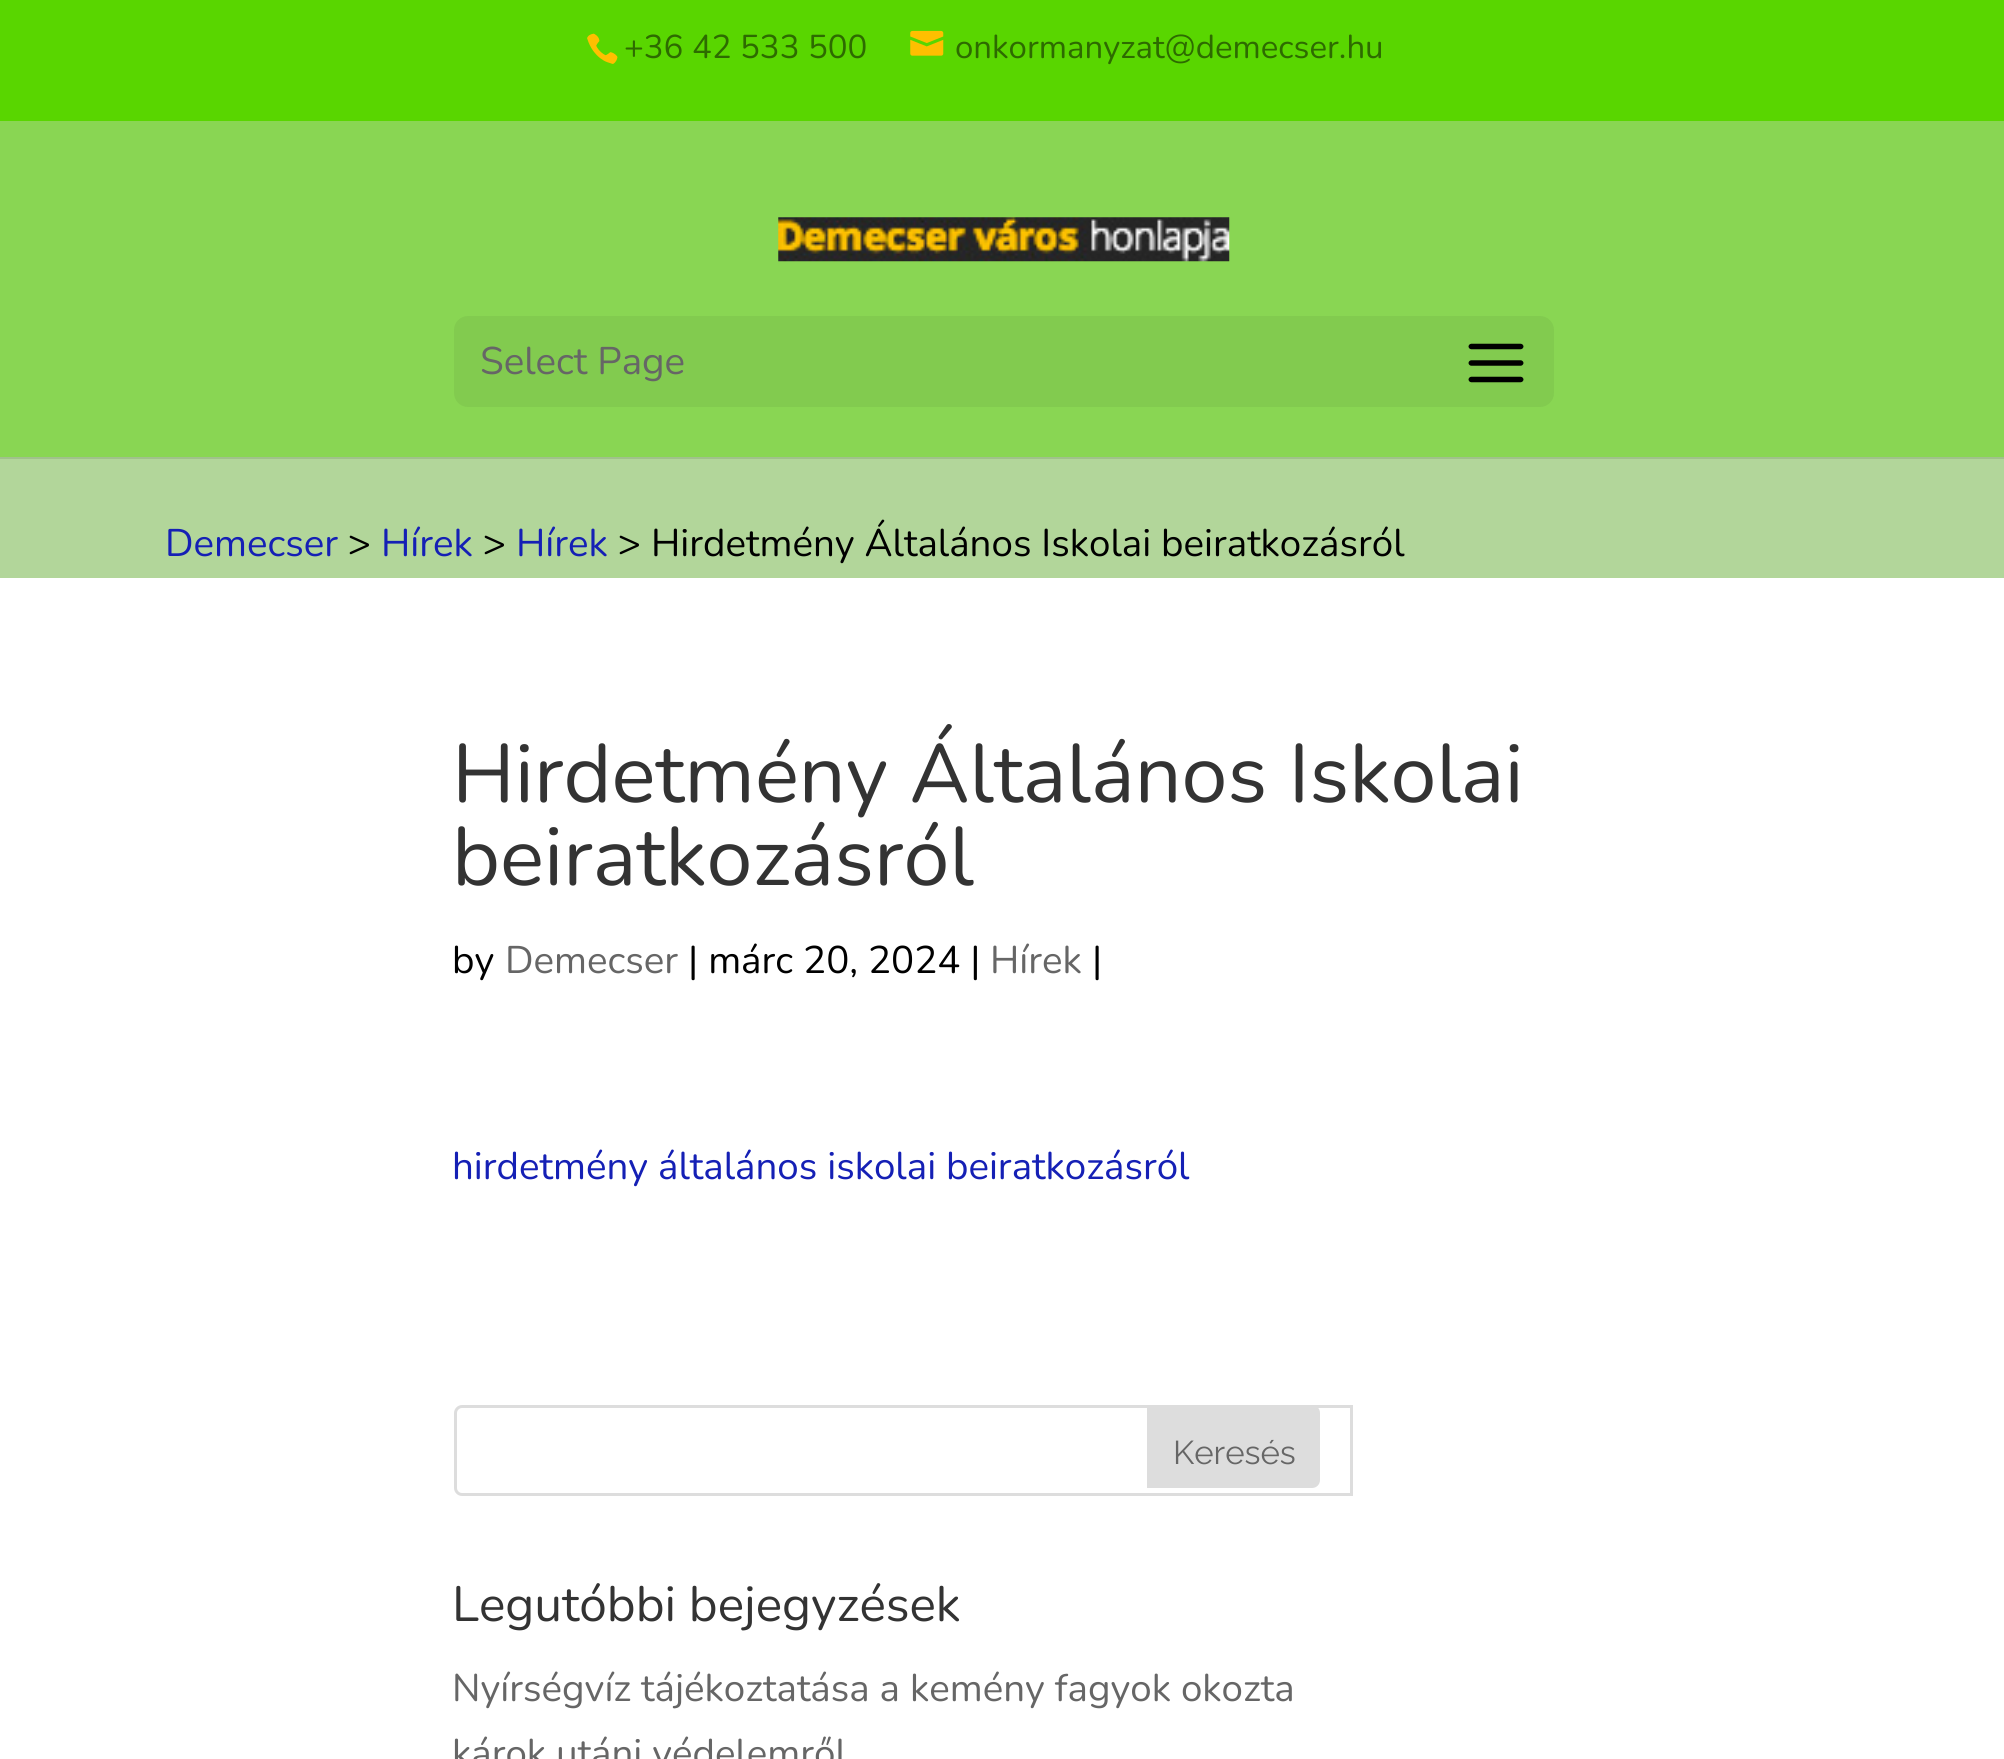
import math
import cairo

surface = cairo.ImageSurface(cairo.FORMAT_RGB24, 2004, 1759)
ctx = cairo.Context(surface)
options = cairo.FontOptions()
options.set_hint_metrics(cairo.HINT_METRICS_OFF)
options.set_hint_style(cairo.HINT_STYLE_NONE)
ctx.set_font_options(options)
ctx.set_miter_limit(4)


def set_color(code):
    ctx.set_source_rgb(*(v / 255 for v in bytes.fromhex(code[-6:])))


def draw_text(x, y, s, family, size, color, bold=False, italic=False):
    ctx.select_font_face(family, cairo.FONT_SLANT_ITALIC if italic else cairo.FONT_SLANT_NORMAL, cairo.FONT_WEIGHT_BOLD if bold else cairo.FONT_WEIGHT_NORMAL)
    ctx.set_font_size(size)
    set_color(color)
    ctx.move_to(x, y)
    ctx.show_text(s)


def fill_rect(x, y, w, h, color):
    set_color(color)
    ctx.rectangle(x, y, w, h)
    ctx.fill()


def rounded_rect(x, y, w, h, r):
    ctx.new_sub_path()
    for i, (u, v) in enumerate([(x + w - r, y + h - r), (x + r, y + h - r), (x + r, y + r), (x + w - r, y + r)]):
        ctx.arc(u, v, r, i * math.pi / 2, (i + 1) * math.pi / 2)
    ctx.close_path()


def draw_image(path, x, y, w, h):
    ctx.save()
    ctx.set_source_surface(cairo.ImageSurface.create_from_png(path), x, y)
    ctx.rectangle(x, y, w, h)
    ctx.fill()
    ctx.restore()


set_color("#b2d69a")
ctx.paint()
fill_rect(0, 0, 2004, 121, "#59d600")
draw_image("assets/img1.png", 587, 33, 31, 31)
draw_text(624, 58, "+36 42 533 500", "Nunito", 33, "#2d6b00")
draw_image("assets/img2.png", 910, 30, 34, 26)
draw_text(955, 58, "onkormanyzat@demecser.hu", "Nunito", 33, "#2d6b00")
set_color("#a0c18b")
ctx.new_path()
ctx.move_to(0, 456)
ctx.line_to(0, 459)
ctx.line_to(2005, 459)
ctx.line_to(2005, 124)
ctx.line_to(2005, 456)
ctx.close_path()
ctx.fill()
fill_rect(0, 121, 2004, 336, "#89d653")
draw_image("assets/img3.png", 778, 217, 452, 45)
set_color("#82cb4f")
rounded_rect(454, 316, 1100, 91, 14)
ctx.fill()
draw_text(480, 374, "Select Page", "Nunito", 38.5, "#666666")
draw_image("assets/img4.png", 1468, 343, 56, 40)
draw_text(165, 556, "Demecser", "Nunito", 38.5, "#1520b5")
draw_text(348, 556, ">", "Nunito", 38.5, "#000000")
draw_text(381, 556, "Hírek", "Nunito", 38.5, "#1520b5")
draw_text(483, 556, ">", "Nunito", 38.5, "#000000")
draw_text(516, 556, "Hírek", "Nunito", 38.5, "#1520b5")
draw_text(618, 556, "> Hirdetmény Általános Iskolai beiratkozásról", "Nunito", 38.5, "#000000")
fill_rect(0, 578, 2004, 1181, "#ffffff")
draw_text(452, 802, "Hirdetmény Általános Iskolai", "Nunito", 82.5, "#333333")
draw_text(452, 885, "beiratkozásról", "Nunito", 82.5, "#333333")
draw_text(452, 973, "by", "Nunito", 38.5, "#000000")
draw_text(505, 973, "Demecser", "Nunito", 38.5, "#666666")
draw_text(688, 973, "| márc 20, 2024 |", "Nunito", 38.5, "#000000")
draw_text(990, 973, "Hírek", "Nunito", 38.5, "#666666")
draw_text(1092, 973, "|", "Nunito", 38.5, "#000000")
draw_text(452, 1179, "hirdetmény általános iskolai beiratkozásról", "Nunito", 38.5, "#1520b5")
ctx.new_path()
ctx.move_to(462, 1406.5)
ctx.line_to(1351.5, 1406.5)
ctx.line_to(1351.5, 1494.5)
ctx.line_to(462, 1494.5)
ctx.curve_to(458.5, 1494.5, 455.5, 1491.5, 455.5, 1488)
ctx.line_to(455.5, 1413)
ctx.curve_to(455.5, 1409.5, 458.5, 1406.5, 462, 1406.5)
ctx.close_path()
set_color("#dddddd")
ctx.set_line_width(3)
ctx.stroke()
ctx.new_path()
ctx.move_to(1147, 1405)
ctx.line_to(1312, 1405)
ctx.curve_to(1316.5, 1405, 1320, 1408.5, 1320, 1413)
ctx.line_to(1320, 1480)
ctx.curve_to(1320, 1484.5, 1316.5, 1488, 1312, 1488)
ctx.line_to(1147, 1488)
ctx.close_path()
ctx.fill()
draw_text(1173, 1464, "Keresés", "Raleway", 33, "#666666")
draw_text(452, 1621, "Legutóbbi bejegyzések", "Nunito", 49.5, "#333333")
draw_text(452, 1701, "Nyírségvíz tájékoztatása a kemény fagyok okozta", "Nunito", 38.5, "#666666")
draw_text(452, 1766, "károk utáni védelemről", "Nunito", 38.5, "#666666")
surface.write_to_png("output.png")
